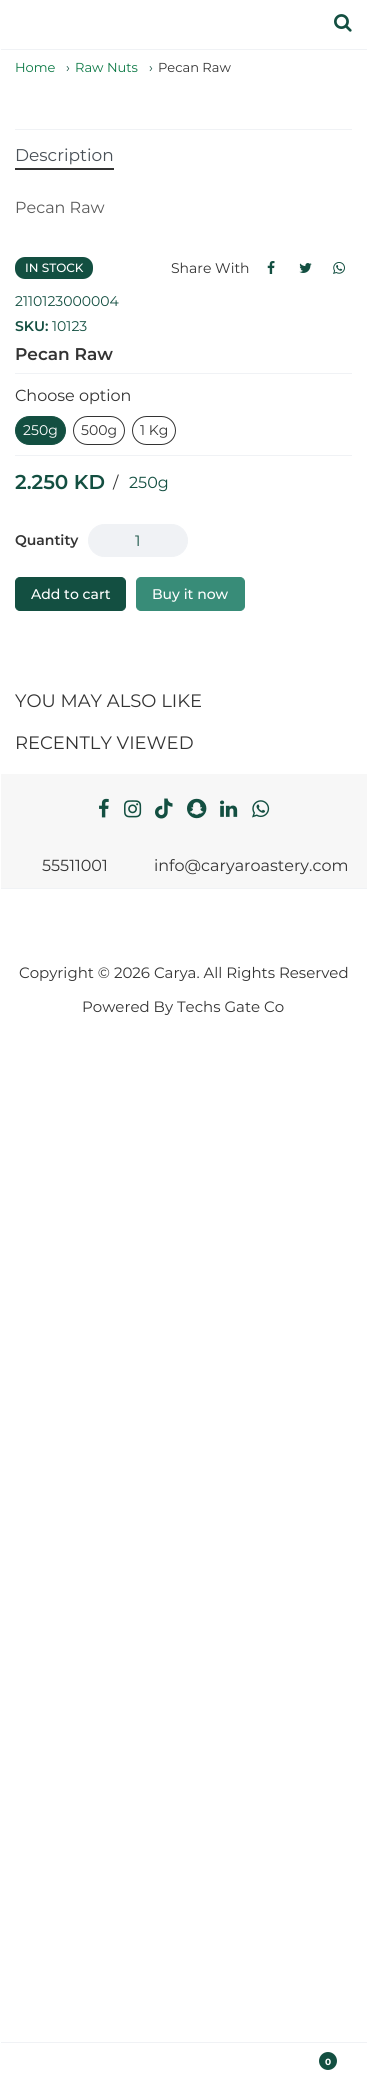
import math
import cairo

surface = cairo.ImageSurface(cairo.FORMAT_RGB24, 367, 2089)
ctx = cairo.Context(surface)
options = cairo.FontOptions()
options.set_hint_metrics(cairo.HINT_METRICS_OFF)
options.set_hint_style(cairo.HINT_STYLE_NONE)
ctx.set_font_options(options)
ctx.set_miter_limit(4)


def set_color(code):
    ctx.set_source_rgb(*(v / 255 for v in bytes.fromhex(code[-6:])))


def draw_text(x, y, s, family, size, color, bold=False, italic=False):
    ctx.select_font_face(family, cairo.FONT_SLANT_ITALIC if italic else cairo.FONT_SLANT_NORMAL, cairo.FONT_WEIGHT_BOLD if bold else cairo.FONT_WEIGHT_NORMAL)
    ctx.set_font_size(size)
    set_color(color)
    ctx.move_to(x, y)
    ctx.show_text(s)


def fill_rect(x, y, w, h, color):
    set_color(color)
    ctx.rectangle(x, y, w, h)
    ctx.fill()


def rounded_rect(x, y, w, h, r):
    ctx.new_sub_path()
    for i, (u, v) in enumerate([(x + w - r, y + h - r), (x + r, y + h - r), (x + r, y + r), (x + w - r, y + r)]):
        ctx.arc(u, v, r, i * math.pi / 2, (i + 1) * math.pi / 2)
    ctx.close_path()


def draw_image(path, x, y, w, h):
    ctx.save()
    ctx.set_source_surface(cairo.ImageSurface.create_from_png(path), x, y)
    ctx.rectangle(x, y, w, h)
    ctx.fill()
    ctx.restore()


set_color("#ffffff")
ctx.paint()
fill_rect(0, 49, 367, 1, "#f0f2f5")
fill_rect(0, 888, 367, 1, "#f0f2f5")
fill_rect(0, 2042, 367, 1, "#f0f2f5")
fill_rect(0, 49, 1, 1994, "#ffffff")
draw_image("assets/img1.png", 334, 14, 18, 18)
draw_text(15, 72, "Home", "Montserrat", 13, "#0a7844")
draw_text(66, 72, "›", "Montserrat", 13, "#134f41")
draw_text(75, 72, "Raw Nuts", "Montserrat", 13, "#0a7844")
draw_text(149, 72, "›", "Montserrat", 13, "#134f41")
draw_text(158, 72, "Pecan Raw", "Montserrat", 13, "#333333")
fill_rect(15, 129, 337, 1, "#f0f2f5")
draw_text(15, 161, "Description", "Montserrat", 17, "#495057")
fill_rect(15, 168, 99, 2, "#333333")
draw_text(15, 213, "Pecan Raw", "Montserrat", 16, "#5a5a5a")
set_color("#134f41")
rounded_rect(15, 257, 78, 22, 10)
ctx.fill()
draw_text(25, 272, "IN STOCK", "Montserrat Medium", 12, "#ffffff")
draw_text(171, 273, "Share With", "Montserrat", 14, "#333333")
draw_image("assets/img2.png", 267, 261, 8, 13)
draw_image("assets/img3.png", 299, 263, 13, 10)
draw_image("assets/img4.png", 333, 262, 12, 12)
draw_text(15, 306, "2110123000004", "Montserrat", 14, "#134f41")
draw_text(15, 331, "SKU:", "Montserrat SemiBold", 14, "#134f41")
draw_text(52, 331, "10123", "Montserrat", 14, "#134f41")
draw_text(15, 360, "Pecan Raw", "Montserrat SemiBold", 17, "#333333")
fill_rect(15, 373, 337, 1, "#f0f2f5")
draw_text(15, 401, "Choose option", "Montserrat", 16, "#333333")
set_color("#134f41")
rounded_rect(15.5, 416.5, 50, 28, 14)
ctx.fill_preserve()
ctx.set_line_width(1)
ctx.stroke()
draw_text(23, 435, "250g", "Montserrat", 14, "#ffffff")
rounded_rect(73.5, 416.5, 51, 28, 14)
set_color("#333333")
ctx.stroke()
draw_text(81, 435, "500g", "Montserrat", 14, "#333333")
rounded_rect(132.5, 416.5, 43, 28, 14)
ctx.stroke()
draw_text(140, 435, "1 Kg", "Montserrat", 14, "#333333")
fill_rect(15, 455, 337, 1, "#f0f2f5")
draw_text(15, 489, "2.250 KD", "Montserrat SemiBold", 20, "#134f41")
draw_text(113, 488, "/", "Montserrat", 16, "#333333")
draw_text(129, 488, "250g", "Montserrat", 16, "#134f41")
draw_text(15, 545, "Quantity", "Montserrat SemiBold", 14, "#333333")
set_color("#f0f2f5")
rounded_rect(88.5, 524.5, 99, 32, 16)
ctx.fill_preserve()
ctx.stroke()
draw_text(135, 546, "1", "Montserrat", 15, "#134f41")
rounded_rect(15.5, 577.5, 110, 33, 4.5)
ctx.fill_preserve()
ctx.stroke()
draw_text(31, 599, "Add to cart", "Montserrat Medium", 14, "#ffffff")
set_color("#388c78")
rounded_rect(136.5, 577.5, 108, 33, 4.5)
ctx.fill_preserve()
ctx.stroke()
draw_text(152, 599, "Buy it now", "Montserrat Medium", 14, "#ffffff")
draw_text(15, 707, "YOU MAY ALSO LIKE", "Montserrat", 18, "#333333")
draw_text(15, 749, "RECENTLY VIEWED", "Montserrat", 18, "#333333")
fill_rect(1, 774, 366, 114, "#f7f7f7")
draw_image("assets/img5.png", 99, 798, 10, 20)
draw_image("assets/img6.png", 124, 800, 18, 18)
draw_image("assets/img7.png", 155, 798, 18, 21)
draw_image("assets/img8.png", 187, 798, 20, 21)
draw_image("assets/img9.png", 220, 800, 18, 17)
draw_image("assets/img10.png", 252, 800, 18, 18)
draw_text(42, 871, "55511001", "Montserrat", 16, "#333333")
draw_text(154, 871, "info@caryaroastery.com", "Montserrat", 16, "#333333")
draw_text(19, 978, "Copyright © 2026 Carya. All Rights Reserved", "Montserrat", 15, "#333333")
draw_text(82, 1012, "Powered By Techs Gate Co", "Montserrat", 15, "#333333")
set_color("#134f41")
ctx.new_path()
ctx.arc(328, 2061, 9, 0, 2 * math.pi)
ctx.fill()
draw_text(325, 2065, "0", "Montserrat", 9, "#ffffff", bold=True)
surface.write_to_png("output.png")
